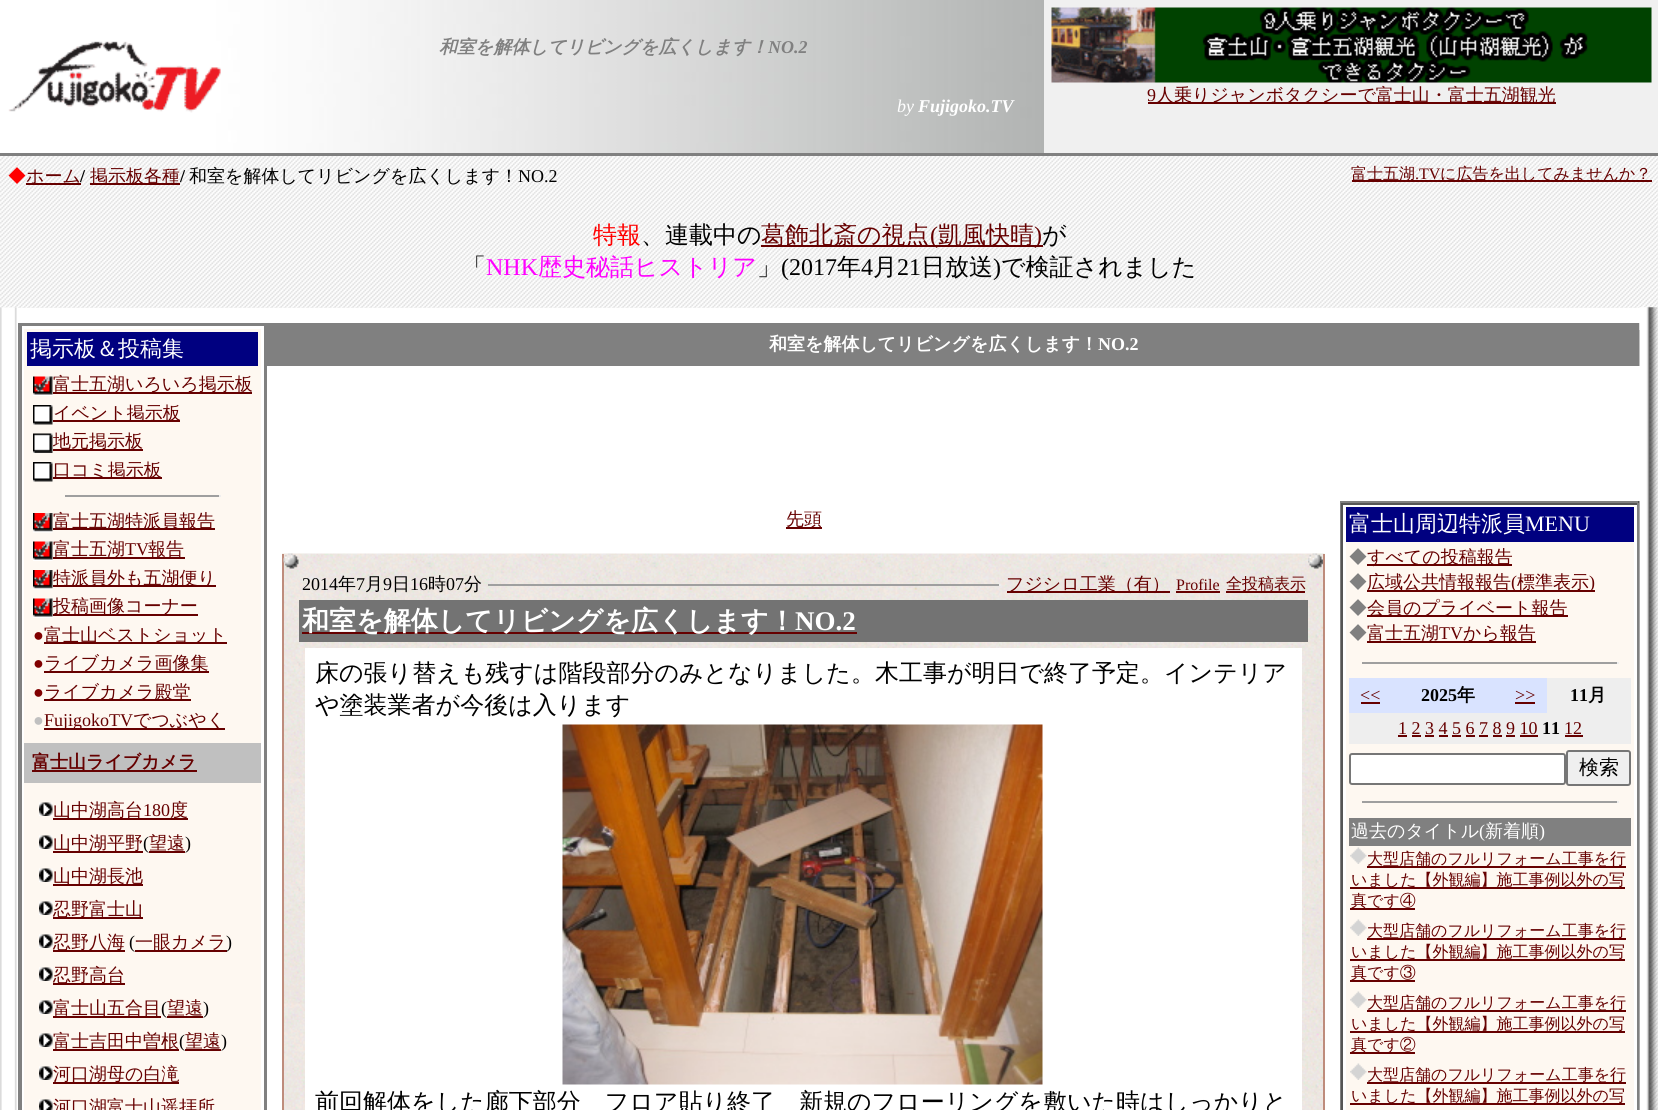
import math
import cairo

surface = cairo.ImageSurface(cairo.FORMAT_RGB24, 1658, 1110)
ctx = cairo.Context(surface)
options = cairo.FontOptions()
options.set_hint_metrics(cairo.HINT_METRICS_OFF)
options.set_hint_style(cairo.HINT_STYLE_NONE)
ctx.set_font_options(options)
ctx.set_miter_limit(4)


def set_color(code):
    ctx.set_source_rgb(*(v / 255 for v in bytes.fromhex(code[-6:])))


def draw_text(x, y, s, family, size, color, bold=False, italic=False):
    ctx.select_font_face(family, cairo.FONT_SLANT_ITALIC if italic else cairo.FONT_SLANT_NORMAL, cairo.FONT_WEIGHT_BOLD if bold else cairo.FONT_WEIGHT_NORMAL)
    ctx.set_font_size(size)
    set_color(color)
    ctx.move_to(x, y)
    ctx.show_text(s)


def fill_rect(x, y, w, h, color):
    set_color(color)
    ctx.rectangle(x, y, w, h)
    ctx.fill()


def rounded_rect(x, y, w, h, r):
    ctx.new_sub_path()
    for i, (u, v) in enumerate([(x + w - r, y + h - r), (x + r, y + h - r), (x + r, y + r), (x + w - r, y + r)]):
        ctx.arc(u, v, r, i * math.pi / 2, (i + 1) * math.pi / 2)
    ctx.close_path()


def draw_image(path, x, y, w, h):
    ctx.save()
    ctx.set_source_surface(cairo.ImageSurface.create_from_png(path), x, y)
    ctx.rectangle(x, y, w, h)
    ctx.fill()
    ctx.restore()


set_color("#ffffff")
ctx.paint()
draw_image("assets/img1.png", 0, 156, 1658, 152)
draw_image("assets/img2.png", 0, 0, 1044, 153)
draw_image("assets/img3.png", 8, 41, 213, 72)
draw_text(439, 53, "和室を解体してリビングを広くします！", "WenQuanYi Zen Hei", 18, "#808080", bold=True, italic=True)
draw_text(768, 53, "NO.2", "Liberation Serif", 18, "#808080", bold=True, italic=True)
fill_rect(1044, 0, 614, 153, "#f0f0f0")
draw_image("assets/img4.png", 1051, 7, 601, 76)
draw_text(1147, 101, "9", "Liberation Serif", 18, "#660000")
fill_rect(1148, 102, 408, 2, "#660000")
draw_text(1156, 101, "人乗りジャンボタクシーで富士山・富士五湖観光", "WenQuanYi Zen Hei Medium", 18, "#660000")
draw_text(897, 112, "by", "Liberation Serif", 18, "#ffffff", italic=True)
draw_text(918, 112, "Fujigoko.TV", "Liberation Serif", 18, "#ffffff", bold=True, italic=True)
fill_rect(0, 153, 1658, 3, "#808080")
draw_text(8, 182, "◆", "WenQuanYi Zen Hei Medium", 18, "#ff0000")
fill_rect(26, 183, 55, 2, "#660000")
draw_text(26, 182, "ホーム", "WenQuanYi Zen Hei Medium", 18, "#660000")
draw_text(80, 182, "/", "Liberation Serif", 18, "#000000", bold=True)
fill_rect(90, 183, 90, 2, "#660000")
draw_text(90, 182, "掲示板各種", "WenQuanYi Zen Hei Medium", 18, "#660000")
draw_text(180, 182, "/", "Liberation Serif", 18, "#000000", bold=True)
draw_text(189, 182, "和室を解体してリビングを広くします！", "WenQuanYi Zen Hei Medium", 18, "#000000")
draw_text(518, 182, "NO.2", "Liberation Serif", 18, "#000000")
fill_rect(1352, 180, 300, 2, "#660000")
draw_text(1351, 179, "富士五湖", "WenQuanYi Zen Hei Medium", 16, "#660000")
draw_text(1415, 179, ".TV", "Liberation Serif", 16, "#660000")
draw_text(1440, 179, "に広告を出してみませんか？", "WenQuanYi Zen Hei Medium", 16, "#660000")
draw_text(593, 243, "特報", "WenQuanYi Zen Hei Medium", 24, "#ff0000")
draw_text(641, 243, "、連載中の", "WenQuanYi Zen Hei Medium", 24, "#000000")
fill_rect(761, 245, 282, 2, "#660000")
draw_text(761, 243, "葛飾北斎の視点", "WenQuanYi Zen Hei Medium", 24, "#660000")
draw_text(930, 243, "(", "Liberation Serif", 24, "#660000")
draw_text(938, 243, "凱風快晴", "WenQuanYi Zen Hei Medium", 24, "#660000")
draw_text(1034, 243, ")", "Liberation Serif", 24, "#660000")
draw_text(1042, 243, "が", "WenQuanYi Zen Hei Medium", 24, "#000000")
draw_text(462, 275, "「", "WenQuanYi Zen Hei Medium", 24, "#000000")
draw_text(486, 275, "NHK", "Liberation Serif", 24, "#ff00ff")
draw_text(538, 275, "歴史秘話ヒストリア", "WenQuanYi Zen Hei Medium", 24, "#ff00ff")
draw_text(757, 275, "」", "WenQuanYi Zen Hei Medium", 24, "#000000")
draw_text(781, 275, "(2017", "Liberation Serif", 24, "#000000")
draw_text(837, 275, "年", "WenQuanYi Zen Hei Medium", 24, "#000000")
draw_text(861, 275, "4", "Liberation Serif", 24, "#000000")
draw_text(873, 275, "月", "WenQuanYi Zen Hei Medium", 24, "#000000")
draw_text(897, 275, "21", "Liberation Serif", 24, "#000000")
draw_text(921, 275, "日放送", "WenQuanYi Zen Hei Medium", 24, "#000000")
draw_text(993, 275, ")", "Liberation Serif", 24, "#000000")
draw_text(1001, 275, "で検証されました", "WenQuanYi Zen Hei Medium", 24, "#000000")
draw_image("assets/img5.png", 0, 307, 18, 803)
ctx.rectangle(19, 324, 247, 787)
set_color("#808080")
ctx.stroke()
ctx.rectangle(21, 325, 244, 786)
ctx.stroke()
fill_rect(24, 329, 237, 781, "#fef8f1")
fill_rect(27, 332, 231, 34, "#000080")
draw_text(30, 356, "掲示板＆投稿集", "WenQuanYi Zen Hei Medium", 22, "#ffffff")
draw_image("assets/img6.png", 33, 376, 20, 20)
fill_rect(53, 392, 199, 2, "#660000")
draw_text(53, 390, "富士五湖いろいろ掲示板", "WenQuanYi Zen Hei Medium", 18, "#660000")
draw_image("assets/img7.png", 33, 405, 20, 20)
fill_rect(53, 420, 127, 2, "#660000")
draw_text(53, 419, "イベント掲示板", "WenQuanYi Zen Hei Medium", 18, "#660000")
draw_image("assets/img8.png", 33, 433, 20, 20)
fill_rect(53, 449, 90, 2, "#660000")
draw_text(53, 447, "地元掲示板", "WenQuanYi Zen Hei Medium", 18, "#660000")
draw_image("assets/img7.png", 33, 462, 20, 20)
fill_rect(53, 477, 109, 2, "#660000")
draw_text(53, 476, "口コミ掲示板", "WenQuanYi Zen Hei Medium", 18, "#660000")
fill_rect(65, 495, 156, 2, "#9f9f9f")
fill_rect(219, 495, 2, 2, "#eeeeee")
draw_image("assets/img9.png", 33, 513, 20, 20)
fill_rect(53, 528, 162, 2, "#660000")
draw_text(53, 527, "富士五湖特派員報告", "WenQuanYi Zen Hei Medium", 18, "#660000")
draw_image("assets/img6.png", 33, 541, 20, 20)
fill_rect(53, 557, 132, 2, "#660000")
draw_text(53, 555, "富士五湖", "WenQuanYi Zen Hei Medium", 18, "#660000")
draw_text(125, 555, "TV", "Liberation Serif", 18, "#660000")
draw_text(148, 555, "報告", "WenQuanYi Zen Hei Medium", 18, "#660000")
draw_image("assets/img9.png", 33, 570, 20, 20)
fill_rect(53, 585, 163, 2, "#660000")
draw_text(53, 584, "特派員外も五湖便り", "WenQuanYi Zen Hei Medium", 18, "#660000")
draw_image("assets/img6.png", 33, 598, 20, 20)
fill_rect(53, 614, 145, 2, "#660000")
draw_text(53, 612, "投稿画像コーナー", "WenQuanYi Zen Hei Medium", 18, "#660000")
draw_text(33, 641, "●", "Liberation Serif", 18, "#800000")
fill_rect(44, 642, 183, 2, "#660000")
draw_text(44, 641, "富士山ベストショット", "WenQuanYi Zen Hei Medium", 18, "#660000")
draw_text(33, 669, "●", "Liberation Serif", 18, "#800000")
fill_rect(44, 671, 165, 2, "#660000")
draw_text(44, 669, "ライブカメラ画像集", "WenQuanYi Zen Hei Medium", 18, "#660000")
draw_text(33, 698, "●", "Liberation Serif", 18, "#800000")
fill_rect(44, 699, 147, 2, "#660000")
draw_text(44, 698, "ライブカメラ殿堂", "WenQuanYi Zen Hei Medium", 18, "#660000")
draw_text(33, 726, "●", "Liberation Serif", 18, "#c0c0c0")
fill_rect(44, 728, 181, 2, "#660000")
draw_text(44, 726, "FujigokoTV", "Liberation Serif", 18, "#660000")
draw_text(133, 726, "でつぶやく", "WenQuanYi Zen Hei Medium", 18, "#660000")
fill_rect(24, 743, 237, 40, "#c0c0c0")
fill_rect(32, 770, 165, 2, "#660000")
draw_text(32, 768, "富士山ライブカメラ", "WenQuanYi Zen Hei", 18, "#660000", bold=True)
draw_image("assets/img10.png", 39, 802, 14, 14)
fill_rect(53, 818, 135, 2, "#660000")
draw_text(53, 816, "山中湖高台", "WenQuanYi Zen Hei Medium", 18, "#660000")
draw_text(143, 816, "180", "Liberation Serif", 18, "#660000")
draw_text(170, 816, "度", "WenQuanYi Zen Hei Medium", 18, "#660000")
draw_image("assets/img10.png", 39, 835, 14, 14)
fill_rect(53, 851, 90, 2, "#660000")
draw_text(53, 849, "山中湖平野", "WenQuanYi Zen Hei Medium", 18, "#660000")
draw_text(143, 849, "(", "Liberation Serif", 18, "#000000")
draw_text(149, 849, "望遠", "WenQuanYi Zen Hei Medium", 18, "#660000")
fill_rect(149, 851, 36, 2, "#660000")
draw_text(185, 849, ")", "Liberation Serif", 18, "#000000")
draw_image("assets/img10.png", 39, 868, 14, 14)
fill_rect(53, 884, 90, 2, "#660000")
draw_text(53, 882, "山中湖長池", "WenQuanYi Zen Hei Medium", 18, "#660000")
draw_image("assets/img10.png", 39, 901, 14, 14)
fill_rect(53, 917, 90, 2, "#660000")
draw_text(53, 915, "忍野富士山", "WenQuanYi Zen Hei Medium", 18, "#660000")
draw_image("assets/img10.png", 39, 934, 14, 14)
fill_rect(53, 950, 72, 2, "#660000")
draw_text(53, 948, "忍野八海", "WenQuanYi Zen Hei Medium", 18, "#660000")
draw_text(129, 948, "(", "Liberation Serif", 18, "#000000")
fill_rect(135, 950, 92, 2, "#660000")
draw_text(135, 948, "一眼カメラ", "WenQuanYi Zen Hei Medium", 18, "#660000")
draw_text(226, 948, ")", "Liberation Serif", 18, "#000000")
draw_image("assets/img10.png", 39, 967, 14, 14)
fill_rect(53, 983, 72, 2, "#660000")
draw_text(53, 981, "忍野高台", "WenQuanYi Zen Hei Medium", 18, "#660000")
draw_image("assets/img10.png", 39, 1000, 14, 14)
fill_rect(53, 1016, 108, 2, "#660000")
draw_text(53, 1014, "富士山五合目", "WenQuanYi Zen Hei Medium", 18, "#660000")
draw_text(161, 1014, "(", "Liberation Serif", 18, "#000000")
draw_text(167, 1014, "望遠", "WenQuanYi Zen Hei Medium", 18, "#660000")
fill_rect(167, 1016, 36, 2, "#660000")
draw_text(203, 1014, ")", "Liberation Serif", 18, "#000000")
draw_image("assets/img10.png", 39, 1033, 14, 14)
fill_rect(53, 1049, 126, 2, "#660000")
draw_text(53, 1047, "富士吉田中曽根", "WenQuanYi Zen Hei Medium", 18, "#660000")
draw_text(179, 1047, "(", "Liberation Serif", 18, "#000000")
draw_text(185, 1047, "望遠", "WenQuanYi Zen Hei Medium", 18, "#660000")
fill_rect(185, 1049, 36, 2, "#660000")
draw_text(221, 1047, ")", "Liberation Serif", 18, "#000000")
draw_image("assets/img10.png", 39, 1066, 14, 14)
fill_rect(53, 1082, 126, 2, "#660000")
draw_text(53, 1080, "河口湖母の白滝", "WenQuanYi Zen Hei Medium", 18, "#660000")
draw_image("assets/img11.png", 39, 1099, 14, 11)
draw_text(53, 1113, "河口湖富士山遥拝所", "WenQuanYi Zen Hei Medium", 18, "#660000")
fill_rect(267, 323, 1373, 43, "#808080")
draw_text(769, 350, "和室を解体してリビングを広くします！", "WenQuanYi Zen Hei", 18, "#ffffff", bold=True)
draw_text(1098, 350, "NO.2", "Liberation Serif", 18, "#ffffff", bold=True)
fill_rect(786, 527, 36, 2, "#660000")
draw_text(786, 525, "先頭", "WenQuanYi Zen Hei Medium", 18, "#660000")
draw_image("assets/img12.png", 282, 553, 1043, 557)
fill_rect(282, 554, 2, 556, "#be8c7c")
draw_image("assets/img13.png", 283, 553, 16, 16)
draw_image("assets/img14.png", 1308, 553, 15, 16)
fill_rect(1323, 554, 2, 556, "#be8c7c")
draw_text(302, 590, "2014", "Liberation Serif", 18, "#000000")
draw_text(338, 590, "年", "WenQuanYi Zen Hei Medium", 18, "#000000")
draw_text(356, 590, "7", "Liberation Serif", 18, "#000000")
draw_text(365, 590, "月", "WenQuanYi Zen Hei Medium", 18, "#000000")
draw_text(383, 590, "9", "Liberation Serif", 18, "#000000")
draw_text(392, 590, "日", "WenQuanYi Zen Hei Medium", 18, "#000000")
draw_text(410, 590, "16", "Liberation Serif", 18, "#000000")
draw_text(428, 590, "時", "WenQuanYi Zen Hei Medium", 18, "#000000")
draw_text(446, 590, "07", "Liberation Serif", 18, "#000000")
draw_text(464, 590, "分", "WenQuanYi Zen Hei Medium", 18, "#000000")
fill_rect(488, 584, 513, 2, "#9f9f9f")
fill_rect(999, 584, 2, 2, "#eeeeee")
fill_rect(1007, 591, 163, 2, "#660000")
draw_text(1006, 590, "フジシロ工業（有）", "WenQuanYi Zen Hei Medium", 18, "#660000")
draw_text(1176, 590, "Profile", "Liberation Serif", 16, "#660000")
fill_rect(1176, 591, 44, 2, "#660000")
fill_rect(1226, 591, 79, 2, "#660000")
draw_text(1226, 589, "全投稿表示", "WenQuanYi Zen Hei Medium", 16, "#660000")
fill_rect(299, 600, 1009, 42, "#737373")
fill_rect(302, 632, 555, 2, "#660000")
draw_text(302, 630, "和室を解体してリビングを広くします！", "WenQuanYi Zen Hei", 27, "#ffffff", bold=True)
draw_text(795, 630, "NO.2", "Liberation Serif", 27, "#ffffff", bold=True)
fill_rect(305, 648, 997, 462, "#ffffff")
draw_text(315, 681, "床の張り替えも残すは階段部分のみとなりました。木工事が明日で終了予定。インテリア", "WenQuanYi Zen Hei Medium", 24, "#000000")
draw_text(315, 713, "や塗装業者が今後は入ります", "WenQuanYi Zen Hei Medium", 24, "#000000")
draw_image("assets/img15.png", 562, 724, 481, 361)
draw_text(315, 1110, "前回解体をした廊下部分　フロア貼り終了　新規のフローリングを敷いた時はしっかりと", "WenQuanYi Zen Hei Medium", 24, "#000000")
fill_rect(1340, 501, 298, 609, "#808080")
fill_rect(1638, 501, 2, 609, "#555555")
fill_rect(1343, 505, 294, 605, "#ffffff")
fill_rect(1341, 503, 297, 2, "#555555")
fill_rect(1637, 503, 2, 607, "#808080")
fill_rect(1341, 503, 2, 607, "#555555")
fill_rect(1346, 542, 288, 568, "#fef8f1")
fill_rect(1346, 507, 288, 35, "#000080")
draw_text(1349, 531, "富士山周辺特派員", "WenQuanYi Zen Hei Medium", 22, "#ffffff")
draw_text(1525, 531, "MENU", "Liberation Serif", 22, "#ffffff")
draw_text(1349, 563, "◆", "WenQuanYi Zen Hei Medium", 18, "#808080")
fill_rect(1367, 564, 145, 2, "#660000")
draw_text(1367, 563, "すべての投稿報告", "WenQuanYi Zen Hei Medium", 18, "#660000")
draw_text(1349, 588, "◆", "WenQuanYi Zen Hei Medium", 18, "#808080")
fill_rect(1367, 590, 228, 2, "#660000")
draw_text(1367, 588, "広域公共情報報告", "WenQuanYi Zen Hei Medium", 18, "#660000")
draw_text(1511, 588, "(", "Liberation Serif", 18, "#660000")
draw_text(1517, 588, "標準表示", "WenQuanYi Zen Hei Medium", 18, "#660000")
draw_text(1589, 588, ")", "Liberation Serif", 18, "#660000")
draw_text(1349, 614, "◆", "WenQuanYi Zen Hei Medium", 18, "#808080")
fill_rect(1367, 615, 201, 2, "#660000")
draw_text(1367, 614, "会員のプライベート報告", "WenQuanYi Zen Hei Medium", 18, "#660000")
draw_text(1349, 639, "◆", "WenQuanYi Zen Hei Medium", 18, "#808080")
fill_rect(1367, 641, 169, 2, "#660000")
draw_text(1367, 639, "富士五湖", "WenQuanYi Zen Hei Medium", 18, "#660000")
draw_text(1439, 639, "TV", "Liberation Serif", 18, "#660000")
draw_text(1463, 639, "から報告", "WenQuanYi Zen Hei Medium", 18, "#660000")
fill_rect(1362, 662, 257, 2, "#9f9f9f")
fill_rect(1617, 662, 2, 2, "#eeeeee")
fill_rect(1349, 678, 198, 35, "#d9e3ff")
draw_text(1360, 701, "<<", "Liberation Serif", 18, "#660000")
fill_rect(1361, 702, 19, 2, "#660000")
draw_text(1421, 701, "2025", "Liberation Serif", 18, "#000000", bold=True)
draw_text(1457, 701, "年", "WenQuanYi Zen Hei", 18, "#000000", bold=True)
draw_text(1515, 701, ">>", "Liberation Serif", 18, "#660000")
fill_rect(1515, 702, 20, 2, "#660000")
fill_rect(1547, 678, 84, 35, "#eeeeee")
draw_text(1570, 701, "11", "Liberation Serif", 18, "#000000", bold=True)
draw_text(1588, 701, "月", "WenQuanYi Zen Hei", 18, "#000000", bold=True)
fill_rect(1349, 713, 282, 31, "#eeeeee")
draw_text(1398, 734, "1 2 3 4 5 6 7 8 9 10", "Liberation Serif", 18, "#660000")
fill_rect(1398, 735, 9, 2, "#660000")
draw_text(1542, 734, "11", "Liberation Serif", 18, "#000000", bold=True)
draw_text(1564, 734, "12", "Liberation Serif", 18, "#660000")
fill_rect(1565, 735, 18, 2, "#660000")
fill_rect(1412, 735, 9, 2, "#660000")
fill_rect(1425, 735, 9, 2, "#660000")
fill_rect(1439, 735, 9, 2, "#660000")
fill_rect(1452, 735, 9, 2, "#660000")
fill_rect(1466, 735, 9, 2, "#660000")
fill_rect(1479, 735, 9, 2, "#660000")
fill_rect(1493, 735, 9, 2, "#660000")
fill_rect(1506, 735, 9, 2, "#660000")
fill_rect(1520, 735, 18, 2, "#660000")
set_color("#ffffff")
rounded_rect(1350, 754, 215, 30, 2)
ctx.fill_preserve()
set_color("#767676")
ctx.stroke()
set_color("#efefef")
rounded_rect(1567, 751, 63, 34, 2)
ctx.fill_preserve()
set_color("#767676")
ctx.stroke()
draw_text(1579, 774, "検索", "WenQuanYi Zen Hei Medium", 20, "#000000")
fill_rect(1362, 801, 257, 2, "#9f9f9f")
fill_rect(1617, 801, 2, 2, "#eeeeee")
fill_rect(1349, 818, 282, 28, "#808080")
draw_text(1351, 837, "過去のタイトル", "WenQuanYi Zen Hei Medium", 18, "#ffffff")
draw_text(1479, 837, "(", "Liberation Serif", 18, "#ffffff")
draw_text(1485, 837, "新着順", "WenQuanYi Zen Hei Medium", 18, "#ffffff")
draw_text(1539, 837, ")", "Liberation Serif", 18, "#ffffff")
draw_image("assets/img16.png", 1350, 847, 17, 17)
fill_rect(1367, 866, 259, 2, "#660000")
draw_text(1367, 864, "大型店舗のフルリフォーム工事を行", "WenQuanYi Zen Hei Medium", 16, "#660000")
fill_rect(1350, 887, 275, 2, "#660000")
draw_text(1351, 885, "いました【外観編】施工事例以外の写", "WenQuanYi Zen Hei Medium", 16, "#660000")
fill_rect(1350, 908, 65, 2, "#660000")
draw_text(1351, 906, "真です④", "WenQuanYi Zen Hei Medium", 16, "#660000")
draw_image("assets/img16.png", 1350, 919, 17, 17)
fill_rect(1367, 938, 259, 2, "#660000")
draw_text(1367, 936, "大型店舗のフルリフォーム工事を行", "WenQuanYi Zen Hei Medium", 16, "#660000")
fill_rect(1350, 959, 275, 2, "#660000")
draw_text(1351, 957, "いました【外観編】施工事例以外の写", "WenQuanYi Zen Hei Medium", 16, "#660000")
fill_rect(1350, 980, 65, 2, "#660000")
draw_text(1351, 978, "真です③", "WenQuanYi Zen Hei Medium", 16, "#660000")
draw_image("assets/img16.png", 1350, 991, 17, 17)
fill_rect(1367, 1010, 259, 2, "#660000")
draw_text(1367, 1008, "大型店舗のフルリフォーム工事を行", "WenQuanYi Zen Hei Medium", 16, "#660000")
fill_rect(1350, 1031, 275, 2, "#660000")
draw_text(1351, 1029, "いました【外観編】施工事例以外の写", "WenQuanYi Zen Hei Medium", 16, "#660000")
fill_rect(1350, 1052, 65, 2, "#660000")
draw_text(1351, 1050, "真です②", "WenQuanYi Zen Hei Medium", 16, "#660000")
draw_image("assets/img16.png", 1350, 1063, 17, 17)
fill_rect(1367, 1082, 259, 2, "#660000")
draw_text(1367, 1080, "大型店舗のフルリフォーム工事を行", "WenQuanYi Zen Hei Medium", 16, "#660000")
fill_rect(1350, 1103, 275, 2, "#660000")
draw_text(1351, 1101, "いました【外観編】施工事例以外の写", "WenQuanYi Zen Hei Medium", 16, "#660000")
draw_image("assets/img17.png", 1639, 307, 19, 803)
draw_image("assets/img18.png", 1639, 307, 18, 23)
surface.write_to_png("output.png")
